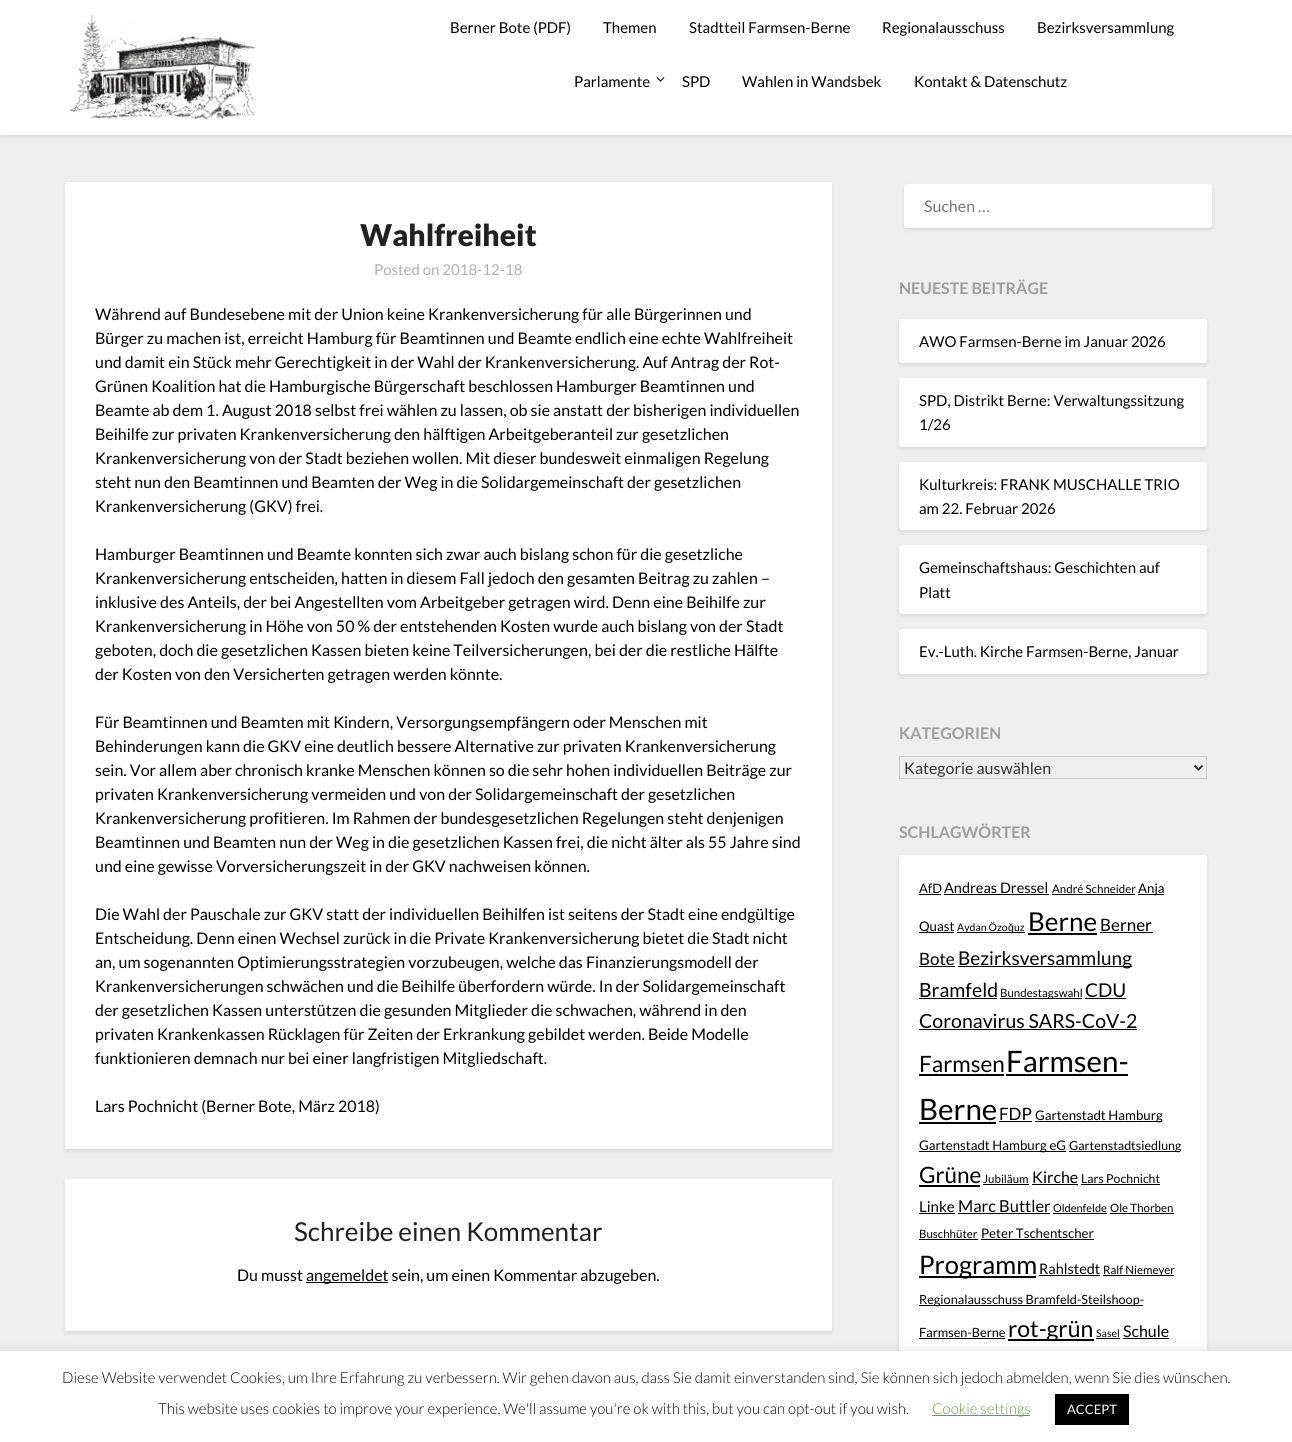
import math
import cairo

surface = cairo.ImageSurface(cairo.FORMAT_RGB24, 1292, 1442)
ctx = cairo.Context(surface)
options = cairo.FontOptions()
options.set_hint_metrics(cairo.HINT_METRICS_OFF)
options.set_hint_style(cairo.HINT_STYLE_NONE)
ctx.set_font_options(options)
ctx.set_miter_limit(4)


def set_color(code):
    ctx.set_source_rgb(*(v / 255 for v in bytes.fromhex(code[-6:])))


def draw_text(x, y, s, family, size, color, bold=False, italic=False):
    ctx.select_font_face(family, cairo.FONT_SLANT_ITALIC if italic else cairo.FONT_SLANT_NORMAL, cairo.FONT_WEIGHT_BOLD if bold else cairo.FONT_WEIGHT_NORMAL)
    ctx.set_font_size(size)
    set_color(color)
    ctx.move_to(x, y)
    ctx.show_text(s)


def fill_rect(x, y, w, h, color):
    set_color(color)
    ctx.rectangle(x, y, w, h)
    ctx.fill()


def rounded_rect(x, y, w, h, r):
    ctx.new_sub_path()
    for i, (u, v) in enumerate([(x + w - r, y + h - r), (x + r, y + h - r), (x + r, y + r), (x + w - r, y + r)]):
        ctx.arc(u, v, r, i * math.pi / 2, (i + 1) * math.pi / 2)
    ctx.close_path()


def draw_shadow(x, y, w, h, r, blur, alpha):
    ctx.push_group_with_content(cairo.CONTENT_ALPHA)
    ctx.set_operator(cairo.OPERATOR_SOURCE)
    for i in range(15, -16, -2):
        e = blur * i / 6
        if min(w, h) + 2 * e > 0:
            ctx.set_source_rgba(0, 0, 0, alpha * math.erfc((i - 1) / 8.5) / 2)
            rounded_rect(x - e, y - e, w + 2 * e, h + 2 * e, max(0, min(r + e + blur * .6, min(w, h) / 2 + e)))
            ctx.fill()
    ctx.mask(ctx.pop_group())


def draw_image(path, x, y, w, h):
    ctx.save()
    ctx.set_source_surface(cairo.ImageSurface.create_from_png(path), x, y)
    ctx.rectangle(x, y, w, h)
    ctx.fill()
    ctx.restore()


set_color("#eeeeee")
ctx.paint()
set_color("#000000")
draw_shadow(0, 2, 1292, 135, 0, 2, 0.1)
fill_rect(0, 0, 1292, 135, "#ffffff")
draw_image("assets/img1.png", 65, 14, 192, 108)
draw_text(450, 33, "Berner Bote (PDF)", "Lato", 15, "#000000")
draw_text(603, 33, "Themen", "Lato", 15, "#000000")
draw_text(689, 33, "Stadtteil Farmsen-Berne", "Lato", 15, "#000000")
draw_text(882, 33, "Regionalausschuss", "Lato", 15, "#000000")
draw_text(1037, 33, "Bezirksversammlung", "Lato", 15, "#000000")
draw_text(574, 87, "Parlamente", "Lato", 15, "#000000")
draw_image("assets/img2.png", 656, 77, 9, 5)
draw_text(682, 87, "SPD", "Lato", 15, "#000000")
draw_text(742, 87, "Wahlen in Wandsbek", "Lato", 15, "#000000")
draw_text(914, 87, "Kontakt & Datenschutz", "Lato", 15, "#000000")
set_color("#000000")
draw_shadow(65, 184, 767, 967, 1, 2, 0.1)
set_color("#ffffff")
rounded_rect(65, 182, 767, 967, 1)
ctx.fill()
draw_text(360, 246, "Wahlfreiheit", "Lato Black", 30, "#212121")
draw_text(374, 275, "Posted on 2018-12-18", "Lato", 15, "#afafaf")
draw_text(95, 320, "Während auf Bundesebene mit der Union keine Krankenversicherung für alle Bürgerinnen und", "Lato", 16, "#000000")
draw_text(95, 344, "Bürger zu machen ist, erreicht Hamburg für Beamtinnen und Beamte endlich eine echte Wahlfreiheit", "Lato", 16, "#000000")
draw_text(95, 368, "und damit ein Stück mehr Gerechtigkeit in der Wahl der Krankenversicherung. Auf Antrag der Rot-", "Lato", 16, "#000000")
draw_text(95, 392, "Grünen Koalition hat die Hamburgische Bürgerschaft beschlossen Hamburger Beamtinnen und", "Lato", 16, "#000000")
draw_text(95, 416, "Beamte ab dem 1. August 2018 selbst frei wählen zu lassen, ob sie anstatt der bisherigen individuellen", "Lato", 16, "#000000")
draw_text(95, 440, "Beihilfe zur privaten Krankenversicherung den hälftigen Arbeitgeberanteil zur gesetzlichen", "Lato", 16, "#000000")
draw_text(95, 464, "Krankenversicherung von der Stadt beziehen wollen. Mit dieser bundesweit einmaligen Regelung", "Lato", 16, "#000000")
draw_text(95, 488, "steht nun den Beamtinnen und Beamten der Weg in die Solidargemeinschaft der gesetzlichen", "Lato", 16, "#000000")
draw_text(95, 512, "Krankenversicherung (GKV) frei.", "Lato", 16, "#000000")
draw_text(95, 560, "Hamburger Beamtinnen und Beamte konnten sich zwar auch bislang schon für die gesetzliche", "Lato", 16, "#000000")
draw_text(95, 584, "Krankenversicherung entscheiden, hatten in diesem Fall jedoch den gesamten Beitrag zu zahlen –", "Lato", 16, "#000000")
draw_text(95, 608, "inklusive des Anteils, der bei Angestellten vom Arbeitgeber getragen wird. Denn eine Beihilfe zur", "Lato", 16, "#000000")
draw_text(95, 632, "Krankenversicherung in Höhe von 50 % der entstehenden Kosten wurde auch bislang von der Stadt", "Lato", 16, "#000000")
draw_text(95, 656, "geboten, doch die gesetzlichen Kassen bieten keine Teilversicherungen, bei der die restliche Hälfte", "Lato", 16, "#000000")
draw_text(95, 680, "der Kosten von den Versicherten getragen werden könnte.", "Lato", 16, "#000000")
draw_text(95, 728, "Für Beamtinnen und Beamten mit Kindern, Versorgungsempfängern oder Menschen mit", "Lato", 16, "#000000")
draw_text(95, 752, "Behinderungen kann die GKV eine deutlich bessere Alternative zur privaten Krankenversicherung", "Lato", 16, "#000000")
draw_text(95, 776, "sein. Vor allem aber chronisch kranke Menschen können so die sehr hohen individuellen Beiträge zur", "Lato", 16, "#000000")
draw_text(95, 800, "privaten Krankenversicherung vermeiden und von der Solidargemeinschaft der gesetzlichen", "Lato", 16, "#000000")
draw_text(95, 824, "Krankenversicherung profitieren. Im Rahmen der bundesgesetzlichen Regelungen steht denjenigen", "Lato", 16, "#000000")
draw_text(95, 848, "Beamtinnen und Beamten nun der Weg in die gesetzlichen Kassen frei, die nicht älter als 55 Jahre sind", "Lato", 16, "#000000")
draw_text(95, 872, "und eine gewisse Vorversicherungszeit in der GKV nachweisen können.", "Lato", 16, "#000000")
draw_text(95, 920, "Die Wahl der Pauschale zur GKV statt der individuellen Beihilfen ist seitens der Stadt eine endgültige", "Lato", 16, "#000000")
draw_text(95, 944, "Entscheidung. Denn einen Wechsel zurück in die Private Krankenversicherung bietet die Stadt nicht", "Lato", 16, "#000000")
draw_text(95, 968, "an, um sogenannten Optimierungsstrategien vorzubeugen, welche das Finanzierungsmodell der", "Lato", 16, "#000000")
draw_text(95, 992, "Krankenversicherungen schwächen und die Beihilfe überfordern würde. In der Solidargemeinschaft", "Lato", 16, "#000000")
draw_text(95, 1016, "der gesetzlichen Kassen unterstützen die gesunden Mitglieder die schwachen, während in den", "Lato", 16, "#000000")
draw_text(95, 1040, "privaten Krankenkassen Rücklagen für Zeiten der Erkrankung gebildet werden. Beide Modelle", "Lato", 16, "#000000")
draw_text(95, 1064, "funktionieren demnach nur bei einer langfristigen Mitgliedschaft.", "Lato", 16, "#000000")
draw_text(95, 1112, "Lars Pochnicht (Berner Bote, März 2018)", "Lato", 16, "#000000")
set_color("#000000")
draw_shadow(65, 1181, 767, 152, 1, 2, 0.1)
set_color("#ffffff")
rounded_rect(65, 1179, 767, 152, 1)
ctx.fill()
draw_text(294, 1241, "Schreibe einen Kommentar", "Lato", 26, "#212121")
draw_text(237, 1281, "Du musst", "Lato", 16, "#000000")
fill_rect(306, 1282, 82, 1, "#000000")
draw_text(306, 1281, "angemeldet sein, um einen Kommentar abzugeben.", "Lato", 16, "#000000")
set_color("#000000")
draw_shadow(904, 186, 308, 44, 3, 2, 0.1)
set_color("#ffffff")
rounded_rect(904, 184, 308, 44, 3)
ctx.fill()
draw_text(924, 212, "Suchen …", "Lato", 16, "#757575")
draw_text(899, 294, "NEUESTE BEITRÄGE", "Lato", 16, "#9e9e9e", bold=True)
set_color("#000000")
draw_shadow(899, 321, 308, 44, 3, 2, 0.1)
set_color("#ffffff")
rounded_rect(899, 319, 308, 44, 3)
ctx.fill()
draw_text(919, 347, "AWO Farmsen-Berne im Januar 2026", "Lato", 15, "#000000")
set_color("#000000")
draw_shadow(899, 380, 308, 69, 3, 2, 0.1)
set_color("#ffffff")
rounded_rect(899, 378, 308, 69, 3)
ctx.fill()
draw_text(919, 406, "SPD, Distrikt Berne: Verwaltungssitzung", "Lato", 15, "#000000")
draw_text(919, 430, "1/26", "Lato", 15, "#000000")
set_color("#000000")
draw_shadow(899, 464, 308, 68, 3, 2, 0.1)
set_color("#ffffff")
rounded_rect(899, 462, 308, 68, 3)
ctx.fill()
draw_text(919, 490, "Kulturkreis: FRANK MUSCHALLE TRIO", "Lato", 15, "#000000")
draw_text(919, 514, "am 22. Februar 2026", "Lato", 15, "#000000")
set_color("#000000")
draw_shadow(899, 547, 308, 69, 3, 2, 0.1)
set_color("#ffffff")
rounded_rect(899, 545, 308, 69, 3)
ctx.fill()
draw_text(919, 573, "Gemeinschaftshaus: Geschichten auf", "Lato", 15, "#000000")
draw_text(919, 598, "Platt", "Lato", 15, "#000000")
set_color("#000000")
draw_shadow(899, 631, 308, 45, 3, 2, 0.1)
set_color("#ffffff")
rounded_rect(899, 629, 308, 45, 3)
ctx.fill()
draw_text(919, 657, "Ev.-Luth. Kirche Farmsen-Berne, Januar", "Lato", 15, "#000000")
draw_text(899, 739, "KATEGORIEN", "Lato", 16, "#9e9e9e", bold=True)
ctx.rectangle(899.5, 756.5, 307, 22)
set_color("#cccccc")
ctx.set_line_width(1)
ctx.stroke()
ctx.new_path()
ctx.move_to(1194.5, 765.5)
ctx.line_to(1198.5, 769.5)
ctx.line_to(1202.5, 765.5)
set_color("#333333")
ctx.set_line_width(2)
ctx.stroke()
draw_text(904, 774, "Kategorie auswählen", "Lato", 16, "#333333")
draw_text(899, 838, "SCHLAGWÖRTER", "Lato", 16, "#9e9e9e", bold=True)
set_color("#000000")
draw_shadow(899, 857, 308, 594, 3, 2, 0.1)
set_color("#ffffff")
rounded_rect(899, 855, 308, 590, 3)
ctx.fill()
draw_text(919, 893, "AfD", "Lato", 13, "#000000")
fill_rect(919, 894, 22, 1, "#000000")
draw_text(944, 893, "Andreas Dressel", "Lato", 14.5, "#000000")
fill_rect(944, 894, 105, 1, "#000000")
draw_text(1052, 893, "André Schneider", "Lato", 11.5, "#000000")
fill_rect(1052, 894, 83, 1, "#000000")
fill_rect(1138, 894, 26, 1, "#000000")
draw_text(1138, 893, "Anja", "Lato", 13.25, "#000000")
fill_rect(919, 932, 35, 1, "#000000")
draw_text(919, 931, "Quast", "Lato", 13.25, "#000000")
fill_rect(957, 932, 68, 1, "#000000")
draw_text(957, 931, "Aydan Özo", "Lato", 10.5, "#000000")
draw_text(1008, 931, "ğ", "Liberation Sans", 10.5, "#000000")
draw_text(1014, 931, "uz", "Lato", 10.5, "#000000")
draw_text(1028, 931, "Berne", "Lato", 26, "#000000")
fill_rect(1028, 933, 69, 2, "#000000")
draw_text(1100, 931, "Berner", "Lato", 17, "#000000")
fill_rect(1100, 932, 53, 1, "#000000")
draw_text(919, 965, "Bote", "Lato", 17, "#000000")
fill_rect(919, 966, 36, 1, "#000000")
fill_rect(958, 966, 174, 1, "#000000")
draw_text(958, 965, "Bezirksversammlung", "Lato", 19, "#000000")
draw_text(919, 997, "Bramfeld", "Lato", 19.5, "#000000")
fill_rect(919, 998, 78, 1, "#000000")
fill_rect(1000, 998, 82, 1, "#000000")
draw_text(1000, 997, "Bundestagswahl", "Lato", 11.5, "#000000")
draw_text(1085, 997, "CDU", "Lato", 19, "#000000")
fill_rect(1085, 998, 41, 1, "#000000")
draw_text(919, 1028, "Coronavirus SARS-CoV-2", "Lato", 19.5, "#000000")
fill_rect(919, 1029, 218, 1, "#000000")
draw_text(919, 1072, "Farmsen", "Lato", 22.5, "#000000")
fill_rect(919, 1074, 85, 2, "#000000")
draw_text(1006, 1072, "Farmsen-", "Lato", 29.5, "#000000")
fill_rect(1006, 1074, 122, 2, "#000000")
draw_text(919, 1120, "Berne", "Lato", 29.5, "#000000")
fill_rect(919, 1122, 77, 2, "#000000")
draw_text(999, 1120, "FDP", "Lato", 17, "#000000")
fill_rect(999, 1121, 33, 1, "#000000")
fill_rect(1035, 1121, 127, 1, "#000000")
draw_text(1035, 1120, "Gartenstadt Hamburg", "Lato", 13.25, "#000000")
fill_rect(919, 1151, 147, 1, "#000000")
draw_text(919, 1150, "Gartenstadt Hamburg eG", "Lato", 13.25, "#000000")
fill_rect(1069, 1151, 111, 1, "#000000")
draw_text(1069, 1150, "Gartenstadtsiedlung", "Lato", 12.5, "#000000")
draw_text(919, 1183, "Grüne", "Lato", 22.5, "#000000")
fill_rect(919, 1185, 61, 2, "#000000")
draw_text(983, 1183, "Jubiläum", "Lato", 11.5, "#000000")
fill_rect(983, 1184, 46, 1, "#000000")
draw_text(1032, 1183, "Kirche", "Lato", 16, "#000000")
fill_rect(1032, 1184, 46, 1, "#000000")
draw_text(1081, 1183, "Lars Pochnicht", "Lato", 12.25, "#000000")
fill_rect(1081, 1184, 79, 1, "#000000")
draw_text(919, 1212, "Linke", "Lato", 15, "#000000")
fill_rect(919, 1213, 36, 1, "#000000")
draw_text(958, 1212, "Marc Buttler", "Lato", 16.5, "#000000")
fill_rect(958, 1213, 92, 1, "#000000")
draw_text(1053, 1212, "Oldenfelde", "Lato", 11, "#000000")
fill_rect(1053, 1213, 54, 1, "#000000")
draw_text(1110, 1212, "Ole Thorben", "Lato", 11.5, "#000000")
fill_rect(1110, 1213, 64, 1, "#000000")
draw_text(919, 1238, "Buschhüter", "Lato", 11.5, "#000000")
fill_rect(919, 1239, 59, 1, "#000000")
draw_text(981, 1238, "Peter Tschentscher", "Lato", 13.25, "#000000")
fill_rect(981, 1239, 113, 1, "#000000")
fill_rect(919, 1276, 117, 2, "#000000")
draw_text(919, 1274, "Programm", "Lato", 25.5, "#000000")
draw_text(1039, 1274, "Rahlstedt", "Lato", 14.5, "#000000")
fill_rect(1039, 1275, 61, 1, "#000000")
fill_rect(1103, 1275, 71, 1, "#000000")
draw_text(1103, 1274, "Ralf Niemeyer", "Lato", 11.5, "#000000")
fill_rect(919, 1305, 224, 1, "#000000")
draw_text(919, 1304, "Regionalausschuss Bramfeld-Steilshoop-", "Lato", 12.7, "#000000")
draw_text(919, 1337, "Farmsen-Berne", "Lato", 12.7, "#000000")
fill_rect(919, 1338, 86, 1, "#000000")
fill_rect(1008, 1339, 86, 2, "#000000")
draw_text(1008, 1337, "rot-grün", "Lato", 23, "#000000")
draw_text(1096, 1337, "Sasel", "Lato", 10.5, "#000000")
fill_rect(1096, 1338, 24, 1, "#000000")
draw_text(1123, 1337, "Schule", "Lato", 16, "#000000")
fill_rect(1123, 1338, 46, 1, "#000000")
set_color("#acabab")
draw_shadow(0, 1350, 1292, 91, 0, 5, 0.3)
fill_rect(0, 1351, 1292, 91, "#ffffff")
draw_text(62, 1383, "Diese Website verwendet Cookies, um Ihre Erfahrung zu verbessern. Wir gehen davon aus, dass Sie damit einverstanden sind, Sie können sich jedoch abmelden, wenn Sie dies wünschen.", "Lato Light", 15, "#000000")
draw_text(158, 1414, "This website uses cookies to improve your experience. We'll assume you're ok with this, but you can opt-out if you wish.", "Lato Light", 15, "#000000")
fill_rect(932, 1415, 98, 1, "#62a329")
draw_text(932, 1414, "Cookie settings", "Lato Light", 15, "#62a329")
fill_rect(1055, 1394, 74, 31, "#000000")
draw_text(1067, 1414, "ACCEPT", "Lato", 13, "#ffffff")
surface.write_to_png("output.png")
